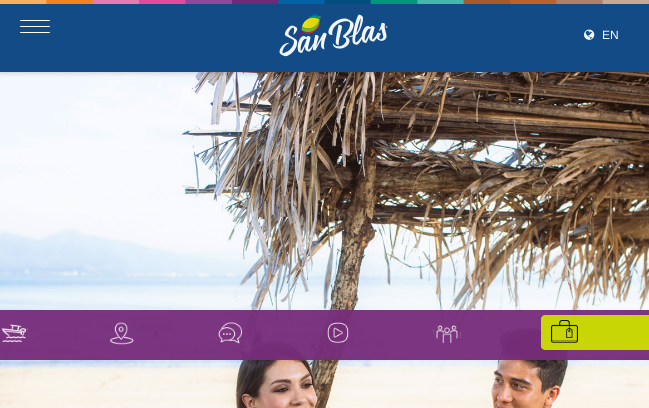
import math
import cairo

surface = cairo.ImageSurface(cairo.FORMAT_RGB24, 649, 408)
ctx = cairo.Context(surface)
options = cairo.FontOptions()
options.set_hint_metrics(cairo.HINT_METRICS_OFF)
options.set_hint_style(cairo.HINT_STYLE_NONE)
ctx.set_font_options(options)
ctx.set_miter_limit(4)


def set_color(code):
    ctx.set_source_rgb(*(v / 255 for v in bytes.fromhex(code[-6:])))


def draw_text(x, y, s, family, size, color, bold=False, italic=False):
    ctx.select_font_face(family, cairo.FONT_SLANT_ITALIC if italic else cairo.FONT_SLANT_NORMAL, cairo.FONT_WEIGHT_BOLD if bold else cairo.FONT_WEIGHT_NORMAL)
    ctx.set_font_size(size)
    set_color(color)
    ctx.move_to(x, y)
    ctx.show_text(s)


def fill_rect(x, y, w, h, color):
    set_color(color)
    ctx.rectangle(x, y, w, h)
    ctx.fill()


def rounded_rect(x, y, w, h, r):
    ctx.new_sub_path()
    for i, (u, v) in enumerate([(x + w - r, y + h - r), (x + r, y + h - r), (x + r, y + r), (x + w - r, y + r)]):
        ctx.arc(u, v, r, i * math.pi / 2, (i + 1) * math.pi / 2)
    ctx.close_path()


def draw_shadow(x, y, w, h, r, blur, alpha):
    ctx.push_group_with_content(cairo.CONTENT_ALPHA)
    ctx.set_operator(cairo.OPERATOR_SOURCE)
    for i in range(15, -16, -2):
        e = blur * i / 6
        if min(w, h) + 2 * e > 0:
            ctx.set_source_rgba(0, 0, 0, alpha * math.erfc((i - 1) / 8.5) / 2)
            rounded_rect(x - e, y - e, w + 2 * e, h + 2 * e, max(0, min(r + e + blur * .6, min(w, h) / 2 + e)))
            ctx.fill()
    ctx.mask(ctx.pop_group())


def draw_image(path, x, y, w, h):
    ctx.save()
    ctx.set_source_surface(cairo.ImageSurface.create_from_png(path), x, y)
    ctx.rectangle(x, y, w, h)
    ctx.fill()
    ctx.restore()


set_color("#ffffff")
ctx.paint()
draw_image("assets/img4.png", 0, 72, 649, 336)
set_color("#000000")
draw_shadow(0, 1, 649, 72, 0, 2.5, 0.19)
fill_rect(0, 0, 649, 72, "#124b86")
draw_image("assets/img1.png", 0, 0, 649, 4)
set_color("#ffffff")
rounded_rect(20, 20, 30, 1, 0.5)
ctx.fill()
rounded_rect(20, 26, 30, 1, 0.5)
ctx.fill()
rounded_rect(20, 32, 30, 1, 0.5)
ctx.fill()
draw_image("assets/img2.png", 279, 14, 109, 43)
draw_image("assets/img3.png", 584, 29, 11, 11)
draw_text(602, 39, "EN", "Liberation Sans", 12, "#ffffff")
ctx.set_source_rgba(0.467, 0.176, 0.478, 0.95)
ctx.rectangle(0, 310, 649, 50)
ctx.fill()
draw_image("assets/img5.png", 1, 324, 27, 18)
draw_image("assets/img6.png", 110, 322, 24, 23)
draw_image("assets/img7.png", 216, 322, 26, 22)
draw_image("assets/img8.png", 327, 322, 22, 21)
draw_image("assets/img9.png", 433, 325, 28, 18)
ctx.set_source_rgba(0.804, 0.871, 0, 0.95)
rounded_rect(541, 315, 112, 35, 4)
ctx.fill()
draw_image("assets/img10.png", 551, 319, 27, 24)
surface.write_to_png("output.png")
